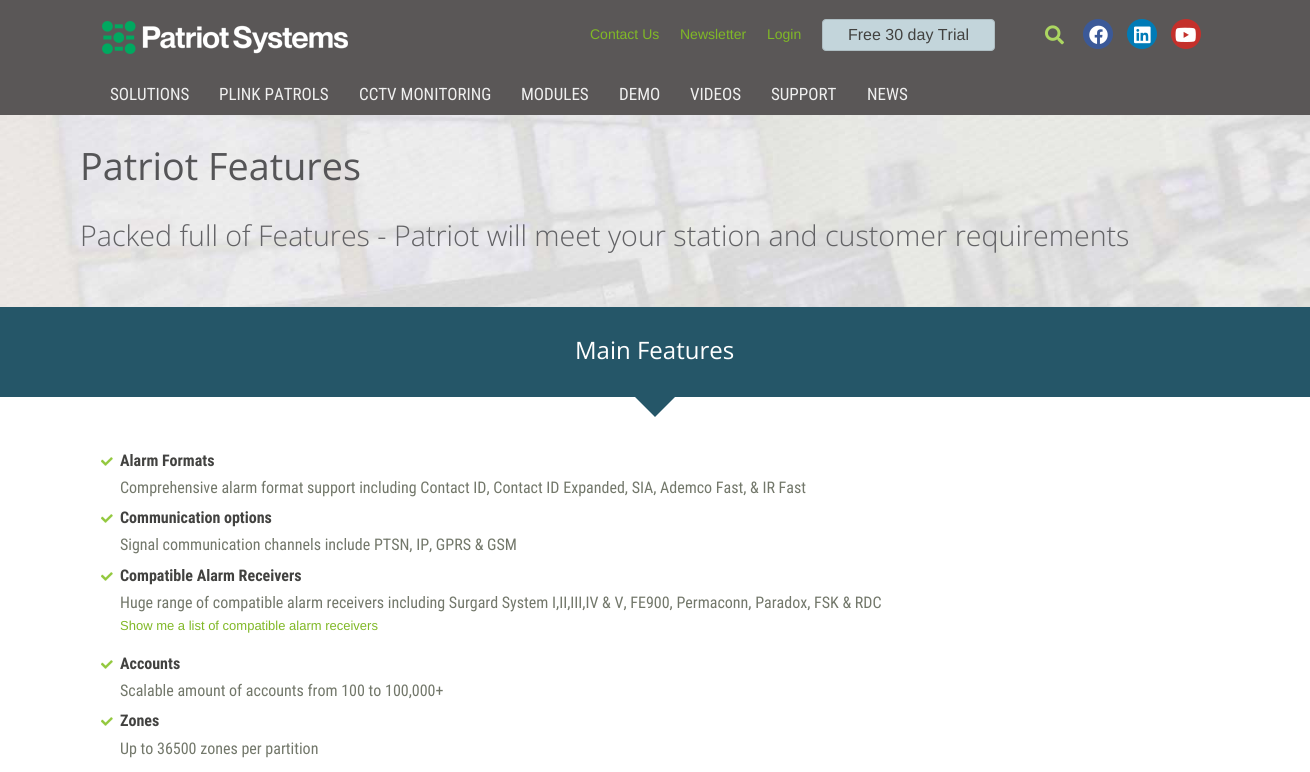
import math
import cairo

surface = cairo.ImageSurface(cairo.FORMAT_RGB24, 1310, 772)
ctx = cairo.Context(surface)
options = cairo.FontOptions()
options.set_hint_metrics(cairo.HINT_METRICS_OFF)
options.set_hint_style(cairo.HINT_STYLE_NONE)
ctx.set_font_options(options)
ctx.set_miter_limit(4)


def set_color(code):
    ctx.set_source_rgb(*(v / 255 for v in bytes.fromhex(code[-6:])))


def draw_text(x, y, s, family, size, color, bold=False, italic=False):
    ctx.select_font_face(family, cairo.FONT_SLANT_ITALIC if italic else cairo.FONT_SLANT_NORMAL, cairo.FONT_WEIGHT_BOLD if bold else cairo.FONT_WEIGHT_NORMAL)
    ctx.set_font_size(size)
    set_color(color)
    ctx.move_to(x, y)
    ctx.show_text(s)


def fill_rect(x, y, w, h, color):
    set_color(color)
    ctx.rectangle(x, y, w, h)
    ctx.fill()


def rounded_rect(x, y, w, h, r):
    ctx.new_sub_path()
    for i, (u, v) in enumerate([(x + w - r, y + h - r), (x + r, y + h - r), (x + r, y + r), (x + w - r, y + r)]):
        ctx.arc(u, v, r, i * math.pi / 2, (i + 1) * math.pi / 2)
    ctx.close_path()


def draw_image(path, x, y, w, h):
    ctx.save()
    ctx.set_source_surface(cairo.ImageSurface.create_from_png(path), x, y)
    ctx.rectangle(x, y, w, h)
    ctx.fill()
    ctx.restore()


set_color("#ffffff")
ctx.paint()
fill_rect(0, 0, 1310, 115, "#5a5757")
draw_image("assets/img1.png", 102, 21, 246, 33)
draw_text(590, 39, "Contact Us", "Liberation Sans", 14, "#80b826")
draw_text(680, 39, "Newsletter", "Liberation Sans", 14, "#80b826")
draw_text(767, 39, "Login", "Liberation Sans", 14, "#80b826")
set_color("#c3d5db")
rounded_rect(822.5, 19.5, 172, 31, 3.5)
ctx.fill_preserve()
set_color("#afbec3")
ctx.set_line_width(1)
ctx.stroke()
draw_text(848, 40, "Free 30 day Trial", "Liberation Sans", 16, "#424240")
draw_image("assets/img2.png", 1045, 25, 19, 20)
set_color("#3b5998")
ctx.arc(1098, 34, 15, 0, 2 * math.pi)
ctx.fill()
draw_image("assets/img3.png", 1089, 25, 19, 19)
set_color("#007bb6")
ctx.arc(1142, 34, 15, 0, 2 * math.pi)
ctx.fill()
draw_image("assets/img4.png", 1134, 26, 17, 18)
set_color("#c4302b")
ctx.arc(1186, 34, 15, 0, 2 * math.pi)
ctx.fill()
draw_image("assets/img5.png", 1175, 27, 21, 15)
draw_text(110, 100, "SOLUTIONS", "Roboto Condensed", 17, "#efefef")
draw_text(219, 100, "PLINK PATROLS", "Roboto Condensed", 17, "#efefef")
draw_text(359, 100, "CCTV MONITORING", "Roboto Condensed", 17, "#efefef")
draw_text(521, 100, "MODULES", "Roboto Condensed", 17, "#efefef")
draw_text(619, 100, "DEMO", "Roboto Condensed", 17, "#efefef")
draw_text(690, 100, "VIDEOS", "Roboto Condensed", 17, "#efefef")
draw_text(771, 100, "SUPPORT", "Roboto Condensed", 17, "#efefef")
draw_text(867, 100, "NEWS", "Roboto Condensed", 17, "#efefef")
draw_image("assets/img6.png", 0, 115, 1310, 192)
draw_text(80, 180, "Patriot Features", "Open Sans", 37.75, "#555557")
draw_text(80, 246, "Packed full of Features - Patriot will meet your station and customer requirements", "Open Sans Light", 28.6, "#626265")
fill_rect(0, 307, 1310, 90, "#255668")
draw_text(575, 359, "Main Features", "Open Sans", 24, "#ffffff")
set_color("#255668")
ctx.new_path()
ctx.move_to(635, 397)
ctx.line_to(675, 397)
ctx.line_to(655, 417)
ctx.close_path()
ctx.fill()
draw_image("assets/img7.png", 101, 457, 12, 9)
draw_text(120, 466, "Alarm Formats", "Roboto Condensed", 16, "#424240", bold=True)
draw_text(120, 493, "Comprehensive alarm format support including Contact ID, Contact ID Expanded, SIA, Ademco Fast, & IR Fast", "Roboto Condensed", 16, "#72776a")
draw_image("assets/img7.png", 101, 514, 12, 9)
draw_text(120, 523, "Communication options", "Roboto Condensed", 16, "#424240", bold=True)
draw_text(120, 550, "Signal communication channels include PTSN, IP, GPRS & GSM", "Roboto Condensed", 16, "#72776a")
draw_image("assets/img7.png", 101, 572, 12, 9)
draw_text(120, 581, "Compatible Alarm Receivers", "Roboto Condensed", 16, "#424240", bold=True)
draw_text(120, 608, "Huge range of compatible alarm receivers including Surgard System I,II,III,IV & V, FE900, Permaconn, Paradox, FSK & RDC", "Roboto Condensed", 16, "#72776a")
draw_text(120, 630, "Show me a list of compatible alarm receivers", "Liberation Sans", 13, "#80b826")
draw_image("assets/img7.png", 101, 660, 12, 9)
draw_text(120, 669, "Accounts", "Roboto Condensed", 16, "#424240", bold=True)
draw_text(120, 696, "Scalable amount of accounts from 100 to 100,000+", "Roboto Condensed", 16, "#72776a")
draw_image("assets/img7.png", 101, 717, 12, 9)
draw_text(120, 726, "Zones", "Roboto Condensed", 16, "#424240", bold=True)
draw_text(120, 754, "Up to 36500 zones per partition", "Roboto Condensed", 16, "#72776a")
surface.write_to_png("output.png")
